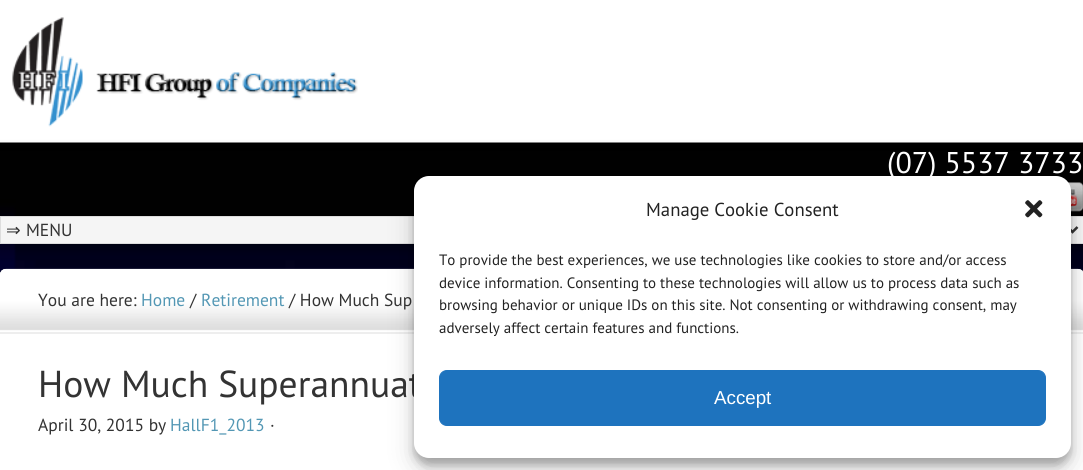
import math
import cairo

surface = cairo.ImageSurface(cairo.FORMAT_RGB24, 1083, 470)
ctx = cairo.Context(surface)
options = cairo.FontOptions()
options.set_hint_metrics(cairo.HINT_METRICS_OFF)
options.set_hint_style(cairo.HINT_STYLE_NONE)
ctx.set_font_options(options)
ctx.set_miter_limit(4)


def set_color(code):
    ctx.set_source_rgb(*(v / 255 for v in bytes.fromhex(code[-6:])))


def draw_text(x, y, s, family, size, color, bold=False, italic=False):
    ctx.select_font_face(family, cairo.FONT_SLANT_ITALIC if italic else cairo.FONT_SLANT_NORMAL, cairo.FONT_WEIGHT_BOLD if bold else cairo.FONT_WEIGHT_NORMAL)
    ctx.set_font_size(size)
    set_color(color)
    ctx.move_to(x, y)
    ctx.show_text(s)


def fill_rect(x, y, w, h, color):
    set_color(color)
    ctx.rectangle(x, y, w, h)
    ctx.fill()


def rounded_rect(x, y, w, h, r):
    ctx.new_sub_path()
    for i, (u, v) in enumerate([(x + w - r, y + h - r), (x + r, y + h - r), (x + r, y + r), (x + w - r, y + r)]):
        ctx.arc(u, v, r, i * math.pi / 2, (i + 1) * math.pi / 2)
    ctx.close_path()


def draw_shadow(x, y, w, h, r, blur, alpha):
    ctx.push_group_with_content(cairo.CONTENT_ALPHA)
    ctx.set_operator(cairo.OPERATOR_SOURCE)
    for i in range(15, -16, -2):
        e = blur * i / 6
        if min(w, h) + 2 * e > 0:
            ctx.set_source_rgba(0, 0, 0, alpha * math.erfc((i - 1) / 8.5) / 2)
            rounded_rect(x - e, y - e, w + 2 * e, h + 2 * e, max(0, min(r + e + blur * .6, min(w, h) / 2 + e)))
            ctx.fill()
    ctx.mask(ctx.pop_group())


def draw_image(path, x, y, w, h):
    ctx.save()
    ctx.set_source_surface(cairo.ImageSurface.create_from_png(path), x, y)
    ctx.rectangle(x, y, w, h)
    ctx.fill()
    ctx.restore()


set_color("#ffffff")
ctx.paint()
draw_image("assets/img1.png", 0, 0, 1083, 275)
draw_image("assets/img2.png", 12, 17, 346, 110)
draw_text(887, 173, "(07) 5537 3733", "PT Sans", 30, "#ffffff")
draw_image("assets/img3.png", 1068, 182, 15, 30)
set_color("#f5f5f5")
ctx.rectangle(0.5, 216.5, 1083, 27)
ctx.fill_preserve()
set_color("#dddddd")
ctx.set_line_width(1)
ctx.stroke()
ctx.new_path()
ctx.move_to(1067.5, 227)
ctx.line_to(1072.5, 232)
ctx.line_to(1077.5, 227)
set_color("#333333")
ctx.set_line_width(2.5)
ctx.stroke()
draw_text(6, 236, "⇒", "DejaVu Sans", 17.5, "#333333")
draw_text(26, 236, "MENU", "PT Sans", 17.5, "#333333")
set_color("#999999")
draw_shadow(0, 270, 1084, 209, 6, 1, 1)
set_color("#ffffff")
rounded_rect(0, 269, 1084, 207, 6)
ctx.fill()
set_color("#dddddd")
ctx.new_path()
ctx.move_to(6, 269)
ctx.line_to(1078, 269)
ctx.curve_to(1081.5, 269, 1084, 271.5, 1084, 275)
ctx.line_to(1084, 334)
ctx.line_to(0, 334)
ctx.line_to(0, 275)
ctx.curve_to(0, 271.5, 2.5, 269, 6, 269)
ctx.close_path()
ctx.fill()
draw_image("assets/img4.png", 0, 268, 1083, 65)
fill_rect(0, 333, 1083, 1, "#eeeeee")
draw_text(38, 306, "You are here:", "PT Sans", 17.5, "#333333")
draw_text(141, 306, "Home", "PT Sans", 17.5, "#5397b4")
draw_text(190, 306, "/", "PT Sans", 17.5, "#333333")
draw_text(201, 306, "Retirement", "PT Sans", 17.5, "#5397b4")
draw_text(289, 306, "/ How Much Sup", "PT Sans", 17.5, "#333333")
draw_text(38, 397, "How Much Superannuat", "PT Sans", 37.5, "#333333")
draw_text(38, 431, "April 30, 2015 by", "PT Sans", 17.5, "#333333")
draw_text(170, 431, "HallF1_2013", "PT Sans", 17.5, "#5397b4")
draw_text(270, 431, "·", "PT Sans", 17.5, "#333333")
set_color("#000000")
draw_shadow(414, 184, 657, 281, 15, 4, 0.23)
draw_shadow(414, 189, 657, 281, 15, 12.5, 0.19)
set_color("#ffffff")
rounded_rect(414, 176, 657, 282, 15)
ctx.fill()
draw_text(646, 216, "Manage Cookie Consent", "PT Sans", 18.75, "#222222")
draw_image("assets/img5.png", 1025, 200, 18, 18)
draw_text(439, 265, "To provide the best experiences, we use technologies like cookies to store and/or access", "PT Sans", 15, "#222222")
draw_text(439, 288, "device information. Consenting to these technologies will allow us to process data such as", "PT Sans", 15, "#222222")
draw_text(439, 310, "browsing behavior or unique IDs on this site. Not consenting or withdrawing consent, may", "PT Sans", 15, "#222222")
draw_text(439, 333, "adversely affect certain features and functions.", "PT Sans", 15, "#222222")
set_color("#1e73be")
rounded_rect(439.5, 370.5, 606, 55, 7.5)
ctx.fill_preserve()
ctx.set_line_width(1)
ctx.stroke()
draw_text(714, 404, "Accept", "Liberation Sans", 18.75, "#ffffff")
surface.write_to_png("output.png")
